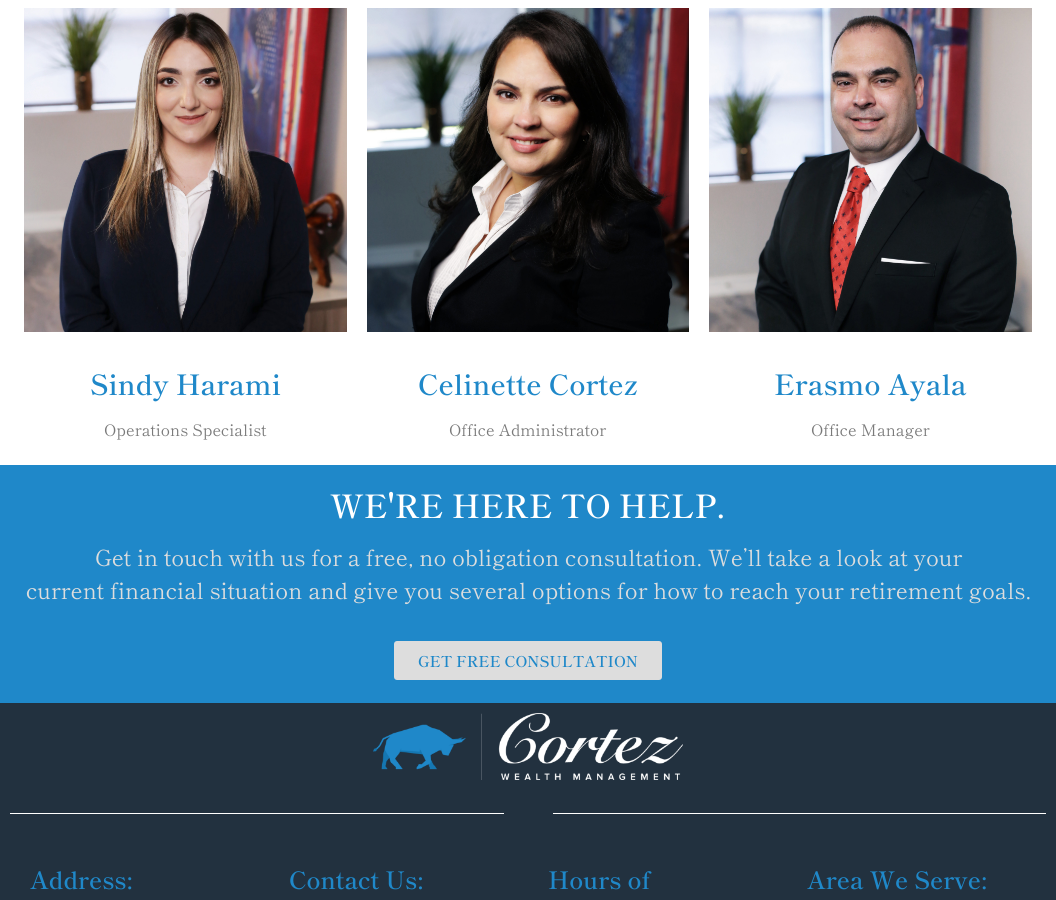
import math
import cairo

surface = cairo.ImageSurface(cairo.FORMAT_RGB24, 1056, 900)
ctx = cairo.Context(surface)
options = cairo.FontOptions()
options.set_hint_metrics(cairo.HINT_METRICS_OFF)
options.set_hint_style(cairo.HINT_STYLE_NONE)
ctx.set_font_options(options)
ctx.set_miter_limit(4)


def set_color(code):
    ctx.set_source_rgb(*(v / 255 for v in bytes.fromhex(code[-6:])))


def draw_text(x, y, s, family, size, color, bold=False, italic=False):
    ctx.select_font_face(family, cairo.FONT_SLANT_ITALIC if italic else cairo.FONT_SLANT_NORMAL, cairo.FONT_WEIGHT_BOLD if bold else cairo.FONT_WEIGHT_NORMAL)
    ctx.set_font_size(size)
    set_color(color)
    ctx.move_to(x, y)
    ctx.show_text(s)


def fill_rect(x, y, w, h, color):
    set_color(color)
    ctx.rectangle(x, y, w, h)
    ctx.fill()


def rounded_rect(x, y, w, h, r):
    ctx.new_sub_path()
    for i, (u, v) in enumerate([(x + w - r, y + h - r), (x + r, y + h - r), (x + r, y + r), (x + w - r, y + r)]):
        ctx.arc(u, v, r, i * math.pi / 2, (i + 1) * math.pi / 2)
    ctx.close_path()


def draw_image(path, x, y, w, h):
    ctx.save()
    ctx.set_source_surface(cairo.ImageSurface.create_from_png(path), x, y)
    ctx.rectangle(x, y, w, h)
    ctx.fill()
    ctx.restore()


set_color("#ffffff")
ctx.paint()
draw_image("assets/img1.png", 24, 8, 323, 324)
draw_text(90, 395, "Sindy Harami", "Shippori Mincho SemiBold", 28, "#1f88c9")
draw_text(104, 436, "Operations Specialist", "Shippori Mincho", 16, "#7a7a7a")
draw_image("assets/img2.png", 367, 8, 322, 324)
draw_text(418, 395, "Celinette Cortez", "Shippori Mincho SemiBold", 28, "#1f88c9")
draw_text(449, 436, "Office Administrator", "Shippori Mincho", 16, "#7a7a7a")
draw_image("assets/img3.png", 709, 8, 323, 324)
draw_text(774, 395, "Erasmo Ayala", "Shippori Mincho SemiBold", 28, "#1f88c9")
draw_text(811, 436, "Office Manager", "Shippori Mincho", 16, "#7a7a7a")
fill_rect(0, 465, 1056, 238, "#1f88c9")
draw_text(330, 518, "WE'RE HERE TO HELP.", "Shippori Mincho SemiBold", 32, "#ffffff")
draw_text(95, 566, "Get in touch with us for a free, no obligation consultation. We’ll take a look at your", "Shippori Mincho", 22.4, "#dddddd")
draw_text(26, 599, "current financial situation and give you several options for how to reach your retirement goals.", "Shippori Mincho", 22.4, "#dddddd")
rounded_rect(394, 641, 268, 39, 3)
ctx.fill()
draw_text(418, 667, "GET FREE CONSULTATION", "Shippori Mincho SemiBold", 15, "#1f88c9")
fill_rect(0, 703, 1056, 197, "#22313f")
draw_image("assets/img4.png", 373, 713, 310, 67)
fill_rect(10, 813, 494, 1, "#ffffff")
fill_rect(553, 813, 493, 1, "#ffffff")
draw_text(30, 889, "Address:", "Shippori Mincho SemiBold", 24, "#1f88c9")
draw_text(289, 889, "Contact Us:", "Shippori Mincho SemiBold", 24, "#1f88c9")
draw_text(548, 889, "Hours of", "Shippori Mincho SemiBold", 24, "#1f88c9")
draw_text(807, 889, "Area We Serve:", "Shippori Mincho SemiBold", 24, "#1f88c9")
surface.write_to_png("output.png")
